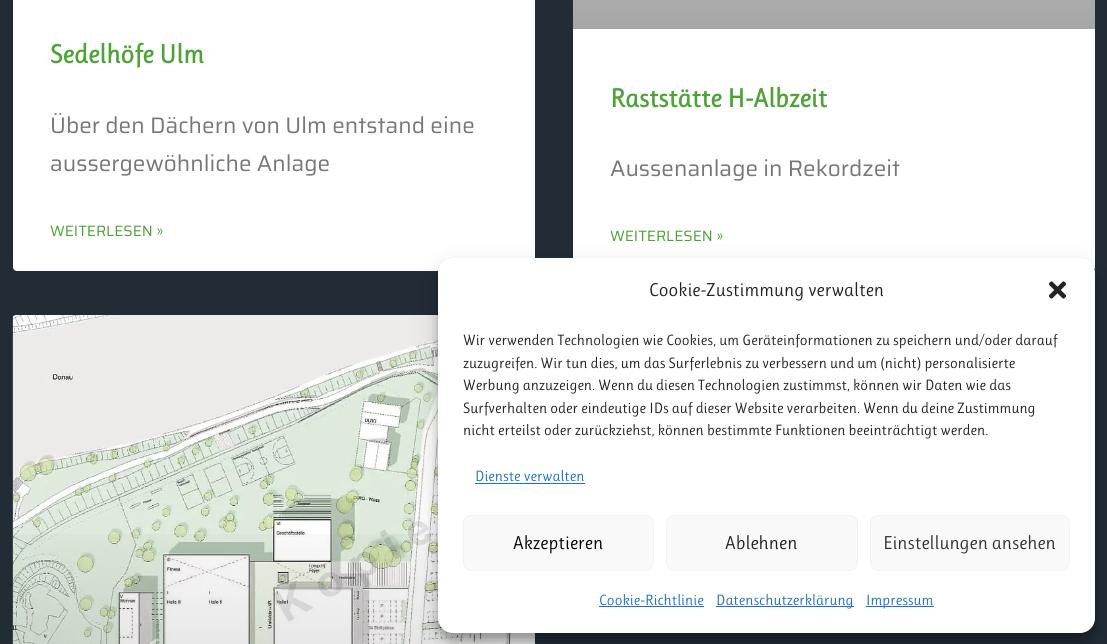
import math
import cairo

surface = cairo.ImageSurface(cairo.FORMAT_RGB24, 1107, 644)
ctx = cairo.Context(surface)
options = cairo.FontOptions()
options.set_hint_metrics(cairo.HINT_METRICS_OFF)
options.set_hint_style(cairo.HINT_STYLE_NONE)
ctx.set_font_options(options)
ctx.set_miter_limit(4)


def set_color(code):
    ctx.set_source_rgb(*(v / 255 for v in bytes.fromhex(code[-6:])))


def draw_text(x, y, s, family, size, color, bold=False, italic=False):
    ctx.select_font_face(family, cairo.FONT_SLANT_ITALIC if italic else cairo.FONT_SLANT_NORMAL, cairo.FONT_WEIGHT_BOLD if bold else cairo.FONT_WEIGHT_NORMAL)
    ctx.set_font_size(size)
    set_color(color)
    ctx.move_to(x, y)
    ctx.show_text(s)


def fill_rect(x, y, w, h, color):
    set_color(color)
    ctx.rectangle(x, y, w, h)
    ctx.fill()


def rounded_rect(x, y, w, h, r):
    ctx.new_sub_path()
    for i, (u, v) in enumerate([(x + w - r, y + h - r), (x + r, y + h - r), (x + r, y + r), (x + w - r, y + r)]):
        ctx.arc(u, v, r, i * math.pi / 2, (i + 1) * math.pi / 2)
    ctx.close_path()


def draw_shadow(x, y, w, h, r, blur, alpha):
    ctx.push_group_with_content(cairo.CONTENT_ALPHA)
    ctx.set_operator(cairo.OPERATOR_SOURCE)
    for i in range(15, -16, -2):
        e = blur * i / 6
        if min(w, h) + 2 * e > 0:
            ctx.set_source_rgba(0, 0, 0, alpha * math.erfc((i - 1) / 8.5) / 2)
            rounded_rect(x - e, y - e, w + 2 * e, h + 2 * e, max(0, min(r + e + blur * .6, min(w, h) / 2 + e)))
            ctx.fill()
    ctx.mask(ctx.pop_group())


def draw_image(path, x, y, w, h):
    ctx.save()
    ctx.set_source_surface(cairo.ImageSurface.create_from_png(path), x, y)
    ctx.rectangle(x, y, w, h)
    ctx.fill()
    ctx.restore()


set_color("#212c37")
ctx.paint()
set_color("#ffffff")
rounded_rect(13, -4, 522, 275, 4)
ctx.fill()
draw_text(50, 63, "Sedelhöfe Ulm", "Ruluko", 26.25, "#4ea336", bold=True)
draw_text(50, 133, "Über den Dächern von Ulm entstand eine", "Saira Thin", 22.5, "#777777")
draw_text(50, 171, "aussergewöhnliche Anlage", "Saira Thin", 22.5, "#777777")
draw_text(50, 236, "WEITERLESEN »", "Saira Thin", 15, "#4ea336")
set_color("#ffffff")
rounded_rect(573, -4, 522, 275, 4)
ctx.fill()
gradient = cairo.LinearGradient(834, 29, 834, -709)
gradient.add_color_stop_rgba(0, 0.651, 0.651, 0.651, 1)
gradient.add_color_stop_rgba(0.75, 1, 1, 1, 1)
ctx.set_source(gradient)
ctx.rectangle(573, 0, 522, 29)
ctx.fill()
draw_text(610, 107, "Raststätte H-Albzeit", "Ruluko", 26.25, "#4ea336", bold=True)
draw_text(610, 176, "Aussenanlage in Rekordzeit", "Saira Thin", 22.5, "#777777")
draw_text(610, 241, "WEITERLESEN »", "Saira Thin", 15, "#4ea336")
draw_image("assets/img1.png", 12, 315, 523, 329)
gradient = cairo.LinearGradient(274, 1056, 274, 315)
gradient.add_color_stop_rgba(0, 0, 0, 0, 0.35)
gradient.add_color_stop_rgba(0.75, 0, 0, 0, 0)
ctx.set_source(gradient)
ctx.rectangle(13, 534, 522, 110)
ctx.fill()
set_color("#000000")
draw_shadow(438, 265, 657, 375, 15, 4, 0.23)
draw_shadow(438, 270, 657, 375, 15, 12.5, 0.19)
set_color("#ffffff")
rounded_rect(438, 258, 657, 375, 15)
ctx.fill()
draw_text(649, 296, "Cookie-Zustimmung verwalten", "Ruluko", 18.75, "#222222")
draw_image("assets/img2.png", 1048, 281, 19, 18)
draw_text(463, 345, "Wir verwenden Technologien wie Cookies, um Geräteinformationen zu speichern und/oder darauf", "Ruluko", 15, "#222222")
draw_text(463, 368, "zuzugreifen. Wir tun dies, um das Surferlebnis zu verbessern und um (nicht) personalisierte", "Ruluko", 15, "#222222")
draw_text(463, 390, "Werbung anzuzeigen. Wenn du diesen Technologien zustimmst, können wir Daten wie das", "Ruluko", 15, "#222222")
draw_text(463, 413, "Surfverhalten oder eindeutige IDs auf dieser Website verarbeiten. Wenn du deine Zustimmung", "Ruluko", 15, "#222222")
draw_text(463, 435, "nicht erteilst oder zurückziehst, können bestimmte Funktionen beeinträchtigt werden.", "Ruluko", 15, "#222222")
draw_text(475, 481, "Dienste verwalten", "Ruluko", 15, "#1e73be")
fill_rect(475, 483, 110, 1, "#1e73be")
set_color("#f9f9f9")
rounded_rect(463.5, 515.5, 190, 55, 7.5)
ctx.fill_preserve()
set_color("#f2f2f2")
ctx.set_line_width(1)
ctx.stroke()
draw_text(513, 549, "Akzeptieren", "Ruluko", 18.75, "#000000")
set_color("#f9f9f9")
rounded_rect(666.5, 515.5, 191, 55, 7.5)
ctx.fill_preserve()
set_color("#f2f2f2")
ctx.stroke()
draw_text(725, 549, "Ablehnen", "Ruluko", 18.75, "#222222")
set_color("#f9f9f9")
rounded_rect(870.5, 515.5, 199, 55, 7.5)
ctx.fill_preserve()
set_color("#f2f2f2")
ctx.stroke()
draw_text(883, 549, "Einstellungen ansehen", "Ruluko", 18.75, "#333333")
draw_text(599, 605, "Cookie-Richtlinie", "Ruluko", 15, "#1e73be")
fill_rect(599, 606, 105, 1, "#1e73be")
fill_rect(716, 606, 138, 1, "#1e73be")
draw_text(716, 605, "Datenschutzerklärung", "Ruluko", 15, "#1e73be")
fill_rect(866, 606, 68, 1, "#1e73be")
draw_text(866, 605, "Impressum", "Ruluko", 15, "#1e73be")
surface.write_to_png("output.png")
